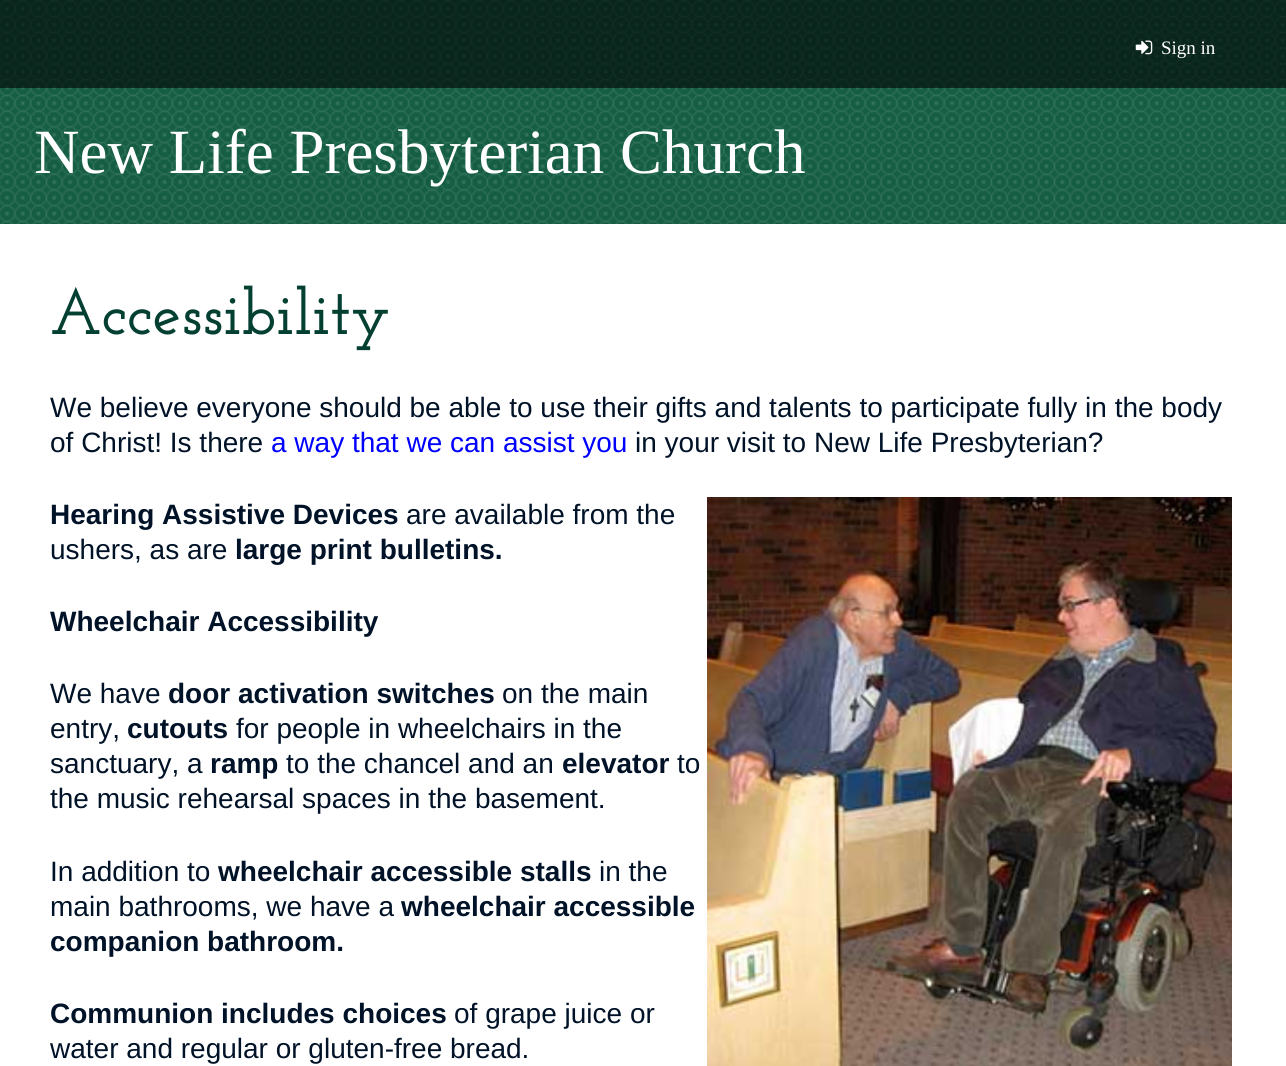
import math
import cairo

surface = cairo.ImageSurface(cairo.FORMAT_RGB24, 1286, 1066)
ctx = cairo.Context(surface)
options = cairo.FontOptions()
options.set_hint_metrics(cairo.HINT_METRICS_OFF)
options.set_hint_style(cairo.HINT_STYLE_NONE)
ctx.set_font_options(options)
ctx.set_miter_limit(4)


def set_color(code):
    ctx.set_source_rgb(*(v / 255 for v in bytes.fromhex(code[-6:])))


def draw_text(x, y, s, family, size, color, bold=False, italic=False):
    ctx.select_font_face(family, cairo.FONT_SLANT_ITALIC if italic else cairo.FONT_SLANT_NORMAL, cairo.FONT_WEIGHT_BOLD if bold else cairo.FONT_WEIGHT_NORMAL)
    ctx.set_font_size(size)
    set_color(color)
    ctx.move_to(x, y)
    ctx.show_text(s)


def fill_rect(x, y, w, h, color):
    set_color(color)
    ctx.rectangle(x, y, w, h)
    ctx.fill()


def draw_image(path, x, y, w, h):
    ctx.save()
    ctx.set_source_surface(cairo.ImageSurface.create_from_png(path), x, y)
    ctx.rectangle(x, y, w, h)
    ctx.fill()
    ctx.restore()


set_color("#ffffff")
ctx.paint()
fill_rect(0, 0, 1286, 224, "#155e44")
draw_image("assets/img2.png", 0, 0, 1286, 224)
ctx.set_source_rgba(0, 0, 0, 0.6)
ctx.rectangle(0, 0, 1286, 88)
ctx.fill()
draw_image("assets/img1.png", 1135, 40, 18, 15)
draw_text(1161, 54, "Sign in", "Liberation Serif", 19, "#ffffff")
draw_text(34, 173, "New Life Presbyterian Church", "Liberation Serif", 63, "#ffffff")
draw_text(50, 334, "Accessibility", "Josefin Slab SemiBold", 64.5, "#034032")
draw_text(50, 417, "We believe everyone should be able to use their gifts and talents to participate fully in the body", "Liberation Sans", 28, "#001227")
draw_text(50, 452, "of Christ! Is there", "Liberation Sans", 28, "#001227")
draw_text(271, 452, "a way that we can assist you", "Liberation Sans", 28, "#0000ff")
draw_text(635, 452, "in your visit to New Life Presbyterian?", "Liberation Sans", 28, "#001227")
draw_text(50, 524, "Hearing Assistive Devices", "Liberation Sans", 28, "#001227", bold=True)
draw_image("assets/img3.png", 707, 497, 525, 569)
draw_text(406, 524, "are available from the", "Liberation Sans", 28, "#001227")
draw_text(50, 559, "ushers, as are", "Liberation Sans", 28, "#001227")
draw_text(235, 559, "large print bulletins.", "Liberation Sans", 28, "#001227", bold=True)
draw_text(50, 631, "Wheelchair Accessibility", "Liberation Sans", 28, "#001227", bold=True)
draw_text(50, 703, "We have", "Liberation Sans", 28, "#001227")
draw_text(168, 703, "door activation switches", "Liberation Sans", 28, "#001227", bold=True)
draw_text(502, 703, "on the main", "Liberation Sans", 28, "#001227")
draw_text(50, 738, "entry,", "Liberation Sans", 28, "#001227")
draw_text(127, 738, "cutouts", "Liberation Sans", 28, "#001227", bold=True)
draw_text(236, 738, "for people in wheelchairs in the", "Liberation Sans", 28, "#001227")
draw_text(50, 773, "sanctuary, a", "Liberation Sans", 28, "#001227")
draw_text(210, 773, "ramp", "Liberation Sans", 28, "#001227", bold=True)
draw_text(286, 773, "to the chancel and an", "Liberation Sans", 28, "#001227")
draw_text(562, 773, "elevator", "Liberation Sans", 28, "#001227", bold=True)
draw_text(677, 773, "to", "Liberation Sans", 28, "#001227")
draw_text(50, 808, "the music rehearsal spaces in the basement.", "Liberation Sans", 28, "#001227")
draw_text(50, 881, "In addition to", "Liberation Sans", 28, "#001227")
draw_text(218, 881, "wheelchair accessible stalls", "Liberation Sans", 28, "#001227", bold=True)
draw_text(599, 881, "in the", "Liberation Sans", 28, "#001227")
draw_text(50, 916, "main bathrooms, we have a", "Liberation Sans", 28, "#001227")
draw_text(401, 916, "wheelchair accessible", "Liberation Sans", 28, "#001227", bold=True)
draw_text(50, 951, "companion bathroom.", "Liberation Sans", 28, "#001227", bold=True)
draw_text(50, 1023, "Communion includes choices", "Liberation Sans", 28, "#001227", bold=True)
draw_text(454, 1023, "of grape juice or", "Liberation Sans", 28, "#001227")
draw_text(50, 1058, "water and regular or gluten-free bread.", "Liberation Sans", 28, "#001227")
surface.write_to_png("output.png")
